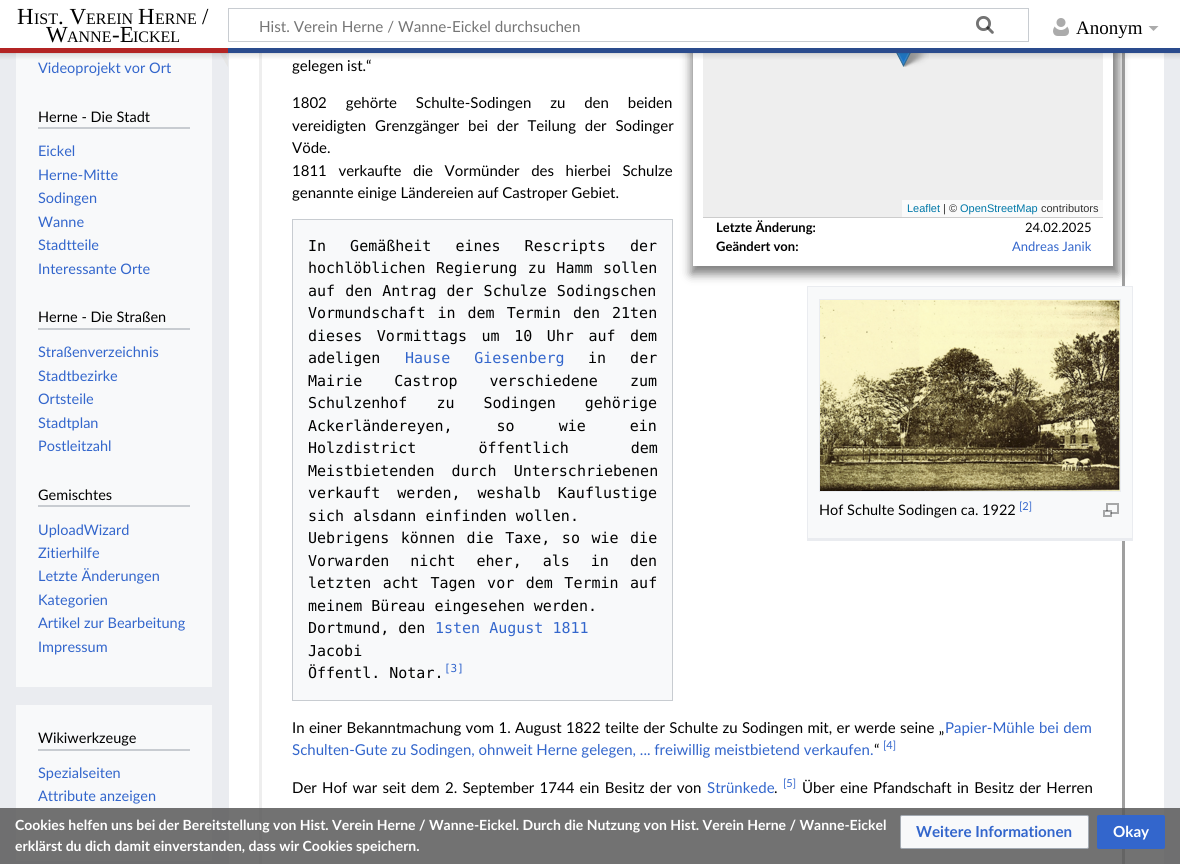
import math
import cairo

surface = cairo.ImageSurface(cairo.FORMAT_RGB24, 1180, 864)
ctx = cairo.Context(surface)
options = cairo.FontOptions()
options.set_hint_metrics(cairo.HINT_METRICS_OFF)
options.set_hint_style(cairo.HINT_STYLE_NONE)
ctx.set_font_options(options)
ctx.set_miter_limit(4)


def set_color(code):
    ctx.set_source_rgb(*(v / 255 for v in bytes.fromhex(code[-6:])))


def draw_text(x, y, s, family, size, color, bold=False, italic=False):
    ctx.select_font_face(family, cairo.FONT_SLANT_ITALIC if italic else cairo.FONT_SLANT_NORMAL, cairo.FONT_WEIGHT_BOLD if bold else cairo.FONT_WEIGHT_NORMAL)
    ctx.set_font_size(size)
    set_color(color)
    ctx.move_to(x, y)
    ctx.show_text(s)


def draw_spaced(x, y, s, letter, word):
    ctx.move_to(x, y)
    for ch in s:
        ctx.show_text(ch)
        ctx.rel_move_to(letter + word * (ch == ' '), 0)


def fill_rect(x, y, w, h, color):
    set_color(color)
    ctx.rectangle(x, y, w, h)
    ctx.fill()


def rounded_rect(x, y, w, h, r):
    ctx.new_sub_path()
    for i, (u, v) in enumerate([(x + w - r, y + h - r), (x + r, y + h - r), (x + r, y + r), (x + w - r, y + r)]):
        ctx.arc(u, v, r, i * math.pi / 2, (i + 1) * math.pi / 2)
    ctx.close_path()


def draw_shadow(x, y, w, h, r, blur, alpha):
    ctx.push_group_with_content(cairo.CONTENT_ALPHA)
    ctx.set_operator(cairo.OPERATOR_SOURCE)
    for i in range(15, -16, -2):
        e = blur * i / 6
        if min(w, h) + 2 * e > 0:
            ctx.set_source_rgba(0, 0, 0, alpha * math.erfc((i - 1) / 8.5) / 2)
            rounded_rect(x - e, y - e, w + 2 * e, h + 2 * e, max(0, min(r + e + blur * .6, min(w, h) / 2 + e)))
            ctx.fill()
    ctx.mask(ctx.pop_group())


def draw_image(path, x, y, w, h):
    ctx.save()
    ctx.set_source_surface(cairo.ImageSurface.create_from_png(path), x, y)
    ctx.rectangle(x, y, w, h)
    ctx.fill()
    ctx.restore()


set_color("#eaecf0")
ctx.paint()
draw_image("assets/img4.png", 219, 53, 9, 15)
fill_rect(229, 53, 935, 811, "#ffffff")
set_color("#9f9f9f")
ctx.new_path()
ctx.move_to(1125, -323)
ctx.line_to(1125, 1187)
ctx.line_to(1122, 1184)
ctx.line_to(1122, -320)
ctx.close_path()
ctx.fill()
set_color("#eeeeee")
ctx.new_path()
ctx.move_to(259, 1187)
ctx.line_to(259, -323)
ctx.line_to(262, -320)
ctx.line_to(262, 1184)
ctx.close_path()
ctx.fill()
ctx.save()
ctx.set_fill_rule(cairo.FILL_RULE_EVEN_ODD)
ctx.new_path()
ctx.move_to(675, 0)
ctx.line_to(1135, 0)
ctx.line_to(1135, 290)
ctx.line_to(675, 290)
ctx.close_path()
ctx.move_to(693, -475)
ctx.line_to(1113, -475)
ctx.line_to(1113, 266)
ctx.line_to(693, 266)
ctx.close_path()
ctx.clip()
set_color("#808080")
draw_shadow(691, -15, 428, 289, 0, 5, 1)
ctx.restore()
fill_rect(703, 53, 400, 164, "#eeeeee")
draw_image("assets/img6.png", 901, 53, 28, 14)
draw_image("assets/img5.png", 896, 53, 15, 14)
fill_rect(16, 53, 196, 634, "#f8f9fa")
set_color("#000000")
draw_shadow(0, 48, 1180, 5, 0, 1, 0.2)
draw_shadow(-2, 49, 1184, 9, 0, 1.5, 0.07)
fill_rect(0, 0, 1180, 48, "#ffffff")
draw_text(17, 24, "H", "Liberation Serif", 23, "#000000")
draw_text(34, 24, "IST", "Liberation Serif", 16, "#000000")
draw_text(58, 24, ". V", "Liberation Serif", 23, "#000000")
draw_text(86, 24, "EREIN", "Liberation Serif", 16, "#000000")
draw_text(138, 24, "H", "Liberation Serif", 23, "#000000")
draw_text(155, 24, "ERNE", "Liberation Serif", 16, "#000000")
draw_text(202, 24, "/", "Liberation Serif", 23, "#000000")
draw_text(46, 42, "W", "Liberation Serif", 23, "#000000")
draw_text(67, 42, "ANNE", "Liberation Serif", 16, "#000000")
draw_text(112, 42, "-E", "Liberation Serif", 23, "#000000")
draw_text(133, 42, "ICKEL", "Liberation Serif", 16, "#000000")
ctx.rectangle(228.5, 8.5, 800, 33)
set_color("#c8ccd1")
ctx.set_line_width(1)
ctx.stroke()
draw_image("assets/img1.png", 976, 16, 18, 18)
draw_text(259, 32, "Hist. Verein Herne / Wanne-Eickel durchsuchen", "Lato", 15.2, "#757575")
draw_image("assets/img2.png", 976, 16, 18, 18)
draw_image("assets/img3.png", 1053, 18, 16, 18)
draw_text(1076, 34, "Anonym", "Liberation Serif", 19, "#000000")
set_color("#ababab")
ctx.new_path()
ctx.move_to(1158.5, 26)
ctx.line_to(1153.5, 31)
ctx.line_to(1148.5, 26)
ctx.close_path()
ctx.fill()
fill_rect(0, 48, 228, 5, "#b32424")
fill_rect(228, 48, 952, 5, "#2a4b8d")
draw_text(292, 71, "gelegen ist.“", "Lato", 15, "#000000")
draw_spaced(292, 108, "1802 gehörte Schulte-Sodingen zu den beiden", 0, 15)
draw_spaced(292, 131, "vereidigten Grenzgänger bei der Teilung der Sodinger", 0, 5)
draw_text(292, 153, "Vöde.", "Lato", 15, "#000000")
draw_spaced(292, 176, "1811 verkaufte die Vormünder des hierbei Schulze", 0, 7.75)
draw_text(292, 198, "genannte einige Ländereien auf Castroper Gebiet.", "Lato", 15, "#000000")
set_color("#f8f9fa")
ctx.rectangle(292.5, 219.5, 380, 481)
ctx.fill_preserve()
set_color("#c8ccd1")
ctx.stroke()
ctx.select_font_face("DejaVu Sans Mono")
set_color("#000000")
draw_spaced(308, 251, "In Gemäßheit eines Rescripts der", 0, 15)
draw_spaced(308, 273, "hochlöblichen Regierung zu Hamm sollen", 0, 1.5)
draw_spaced(308, 296, "auf den Antrag der Schulze Sodingschen", 0, 1)
draw_spaced(308, 318, "Vormundschaft in dem Termin den 21ten", 0, 3)
draw_spaced(308, 341, "dieses Vormittags um 10 Uhr auf dem", 0, 5.5)
draw_text(308, 363, "adeligen", "DejaVu Sans Mono", 15, "#000000")
set_color("#3366cc")
draw_spaced(405, 363, "Hause Giesenberg", 0, 15)
set_color("#000000")
draw_spaced(588, 363, "in der", 0, 15)
draw_spaced(308, 386, "Mairie Castrop verschiedene zum", 0, 23)
draw_spaced(308, 408, "Schulzenhof zu Sodingen gehörige", 0, 20)
draw_spaced(308, 431, "Ackerländereyen, so wie ein", 0, 35)
draw_spaced(308, 453, "Holzdistrict öffentlich dem", 0, 53)
draw_spaced(308, 476, "Meistbietenden durch Unterschriebenen", 0, 8)
draw_spaced(308, 498, "verkauft werden, weshalb Kauflustige", 0, 8)
draw_text(308, 521, "sich alsdann einfinden wollen.", "DejaVu Sans Mono", 15, "#000000")
draw_spaced(308, 543, "Uebrigens können die Taxe, so wie die", 0, 2.5)
draw_spaced(308, 566, "Vorwarden nicht eher, als in den", 0, 12)
draw_spaced(308, 588, "letzten acht Tagen vor dem Termin auf", 0, 2.5)
draw_text(308, 611, "meinem Büreau eingesehen werden.", "DejaVu Sans Mono", 15, "#000000")
draw_text(308, 633, "Dortmund, den", "DejaVu Sans Mono", 15, "#000000")
draw_text(435, 633, "1sten August 1811", "DejaVu Sans Mono", 15, "#3366cc")
draw_text(308, 656, "Jacobi", "DejaVu Sans Mono", 15, "#000000")
draw_text(308, 678, "Öffentl. Notar.", "DejaVu Sans Mono", 15, "#000000")
draw_text(444, 672, "[3]", "DejaVu Sans Mono", 11, "#3366cc")
ctx.select_font_face("Lato")
ctx.set_font_size(15)
set_color("#000000")
draw_spaced(292, 733, "In einer Bekanntmachung vom 1. August 1822 teilte der Schulte zu Sodingen mit, er werde seine „", 0, 0.5)
set_color("#3366cc")
draw_spaced(945, 733, "Papier-Mühle bei dem", 0, 0.5)
draw_text(292, 755, "Schulten-Gute zu Sodingen, ohnweit Herne gelegen, ... freiwillig meistbietend verkaufen.", "Lato", 15, "#3366cc")
draw_text(874, 755, "“", "Lato", 15, "#000000")
draw_text(883, 749, "[4]", "Lato", 11, "#3366cc")
ctx.set_font_size(15)
set_color("#000000")
draw_spaced(292, 793, "Der Hof war seit dem 2. September 1744 ein Besitz der von", 0, 1.4)
draw_text(707, 793, "Strünkede", "Lato", 15, "#3366cc")
draw_text(774, 793, ".", "Lato", 15, "#000000")
draw_text(783, 787, "[5]", "Lato", 11, "#3366cc")
ctx.set_font_size(15)
set_color("#000000")
draw_spaced(802, 793, "Über eine Pfandschaft in Besitz der Herren", 0, 1.4)
fill_rect(902, 200, 201, 17, "#fafafa")
draw_text(907, 212, "Leaflet", "Liberation Sans", 11, "#0078a8")
draw_text(943, 212, "| ©", "Liberation Sans", 11, "#333333")
draw_text(960, 212, "OpenStreetMap", "Liberation Sans", 11, "#0078a8")
draw_text(1041, 212, "contributors", "Liberation Sans", 11, "#333333")
fill_rect(703, 217, 400, 1, "#cccccc")
draw_text(716, 232, "Letzte Änderung:", "Lato", 13, "#000000", bold=True)
draw_text(1025, 232, "24.02.2025", "Lato", 13, "#000000")
draw_text(716, 251, "Geändert von:", "Lato", 13, "#000000", bold=True)
draw_text(1012, 251, "Andreas Janik", "Lato", 13, "#3366cc")
fill_rect(808, 287, 324, 251, "#f8f9fa")
fill_rect(807, 286, 326, 1, "#eaecf0")
fill_rect(1132, 286, 1, 255, "#eaecf0")
fill_rect(807, 538, 326, 3, "#eaecf0")
fill_rect(807, 286, 1, 255, "#eaecf0")
ctx.rectangle(819.5, 299.5, 301, 192)
ctx.stroke()
draw_image("assets/img7.png", 820, 300, 300, 191)
draw_text(819, 515, "Hof Schulte Sodingen ca. 1922", "Lato", 14.5, "#000000")
draw_text(1019, 510, "[2]", "Lato", 11, "#3366cc")
draw_image("assets/img8.png", 1103, 503, 16, 14)
fill_rect(16, 705, 196, 156, "#f8f9fa")
ctx.set_source_rgba(0.353, 0.353, 0.353, 0.85)
ctx.rectangle(0, 808, 1180, 56)
ctx.fill()
draw_text(15, 830, "Cookies helfen uns bei der Bereitstellung von Hist. Verein Herne / Wanne-Eickel. Durch die Nutzung von Hist. Verein Herne / Wanne-Eickel", "Lato", 13.98, "#ffffff", bold=True)
draw_text(15, 851, "erklärst du dich damit einverstanden, dass wir Cookies speichern.", "Lato", 13.98, "#ffffff", bold=True)
set_color("#f8f9fa")
rounded_rect(900.5, 815.5, 188, 33, 1.5)
ctx.fill_preserve()
set_color("#a2a9b1")
ctx.stroke()
draw_text(916, 837, "Weitere Informationen", "Lato", 15.2, "#3366cc", bold=True)
rounded_rect(1097.5, 815.5, 67, 33, 1.5)
ctx.fill_preserve()
ctx.stroke()
draw_text(1113, 837, "Okay", "Lato", 15.2, "#ffffff", bold=True)
draw_text(38, 73, "Videoprojekt vor Ort", "Lato", 14.5, "#3366cc")
fill_rect(38, 127, 152, 2, "#c8ccd1")
draw_text(38, 122, "Herne - Die Stadt", "Lato", 14.5, "#000000")
draw_text(38, 156, "Eickel", "Lato", 14.5, "#3366cc")
draw_text(38, 180, "Herne-Mitte", "Lato", 14.5, "#3366cc")
draw_text(38, 203, "Sodingen", "Lato", 14.5, "#3366cc")
draw_text(38, 227, "Wanne", "Lato", 14.5, "#3366cc")
draw_text(38, 250, "Stadtteile", "Lato", 14.5, "#3366cc")
draw_text(38, 274, "Interessante Orte", "Lato", 14.5, "#3366cc")
fill_rect(38, 328, 152, 2, "#c8ccd1")
draw_text(38, 322, "Herne - Die Straßen", "Lato", 14.5, "#000000")
draw_text(38, 357, "Straßenverzeichnis", "Lato", 14.5, "#3366cc")
draw_text(38, 381, "Stadtbezirke", "Lato", 14.5, "#3366cc")
draw_text(38, 404, "Ortsteile", "Lato", 14.5, "#3366cc")
draw_text(38, 428, "Stadtplan", "Lato", 14.5, "#3366cc")
draw_text(38, 451, "Postleitzahl", "Lato", 14.5, "#3366cc")
fill_rect(38, 505, 152, 2, "#c8ccd1")
draw_text(38, 500, "Gemischtes", "Lato", 14.5, "#000000")
draw_text(38, 535, "UploadWizard", "Lato", 14.5, "#3366cc")
draw_text(38, 558, "Zitierhilfe", "Lato", 14.5, "#3366cc")
draw_text(38, 581, "Letzte Änderungen", "Lato", 14.5, "#3366cc")
draw_text(38, 605, "Kategorien", "Lato", 14.5, "#3366cc")
draw_text(38, 628, "Artikel zur Bearbeitung", "Lato", 14.5, "#3366cc")
draw_text(38, 652, "Impressum", "Lato", 14.5, "#3366cc")
fill_rect(38, 749, 152, 2, "#c8ccd1")
draw_text(38, 743, "Wikiwerkzeuge", "Lato", 14.5, "#000000")
draw_text(38, 778, "Spezialseiten", "Lato", 14.5, "#3366cc")
draw_text(38, 801, "Attribute anzeigen", "Lato", 14.5, "#3366cc")
surface.write_to_png("output.png")
